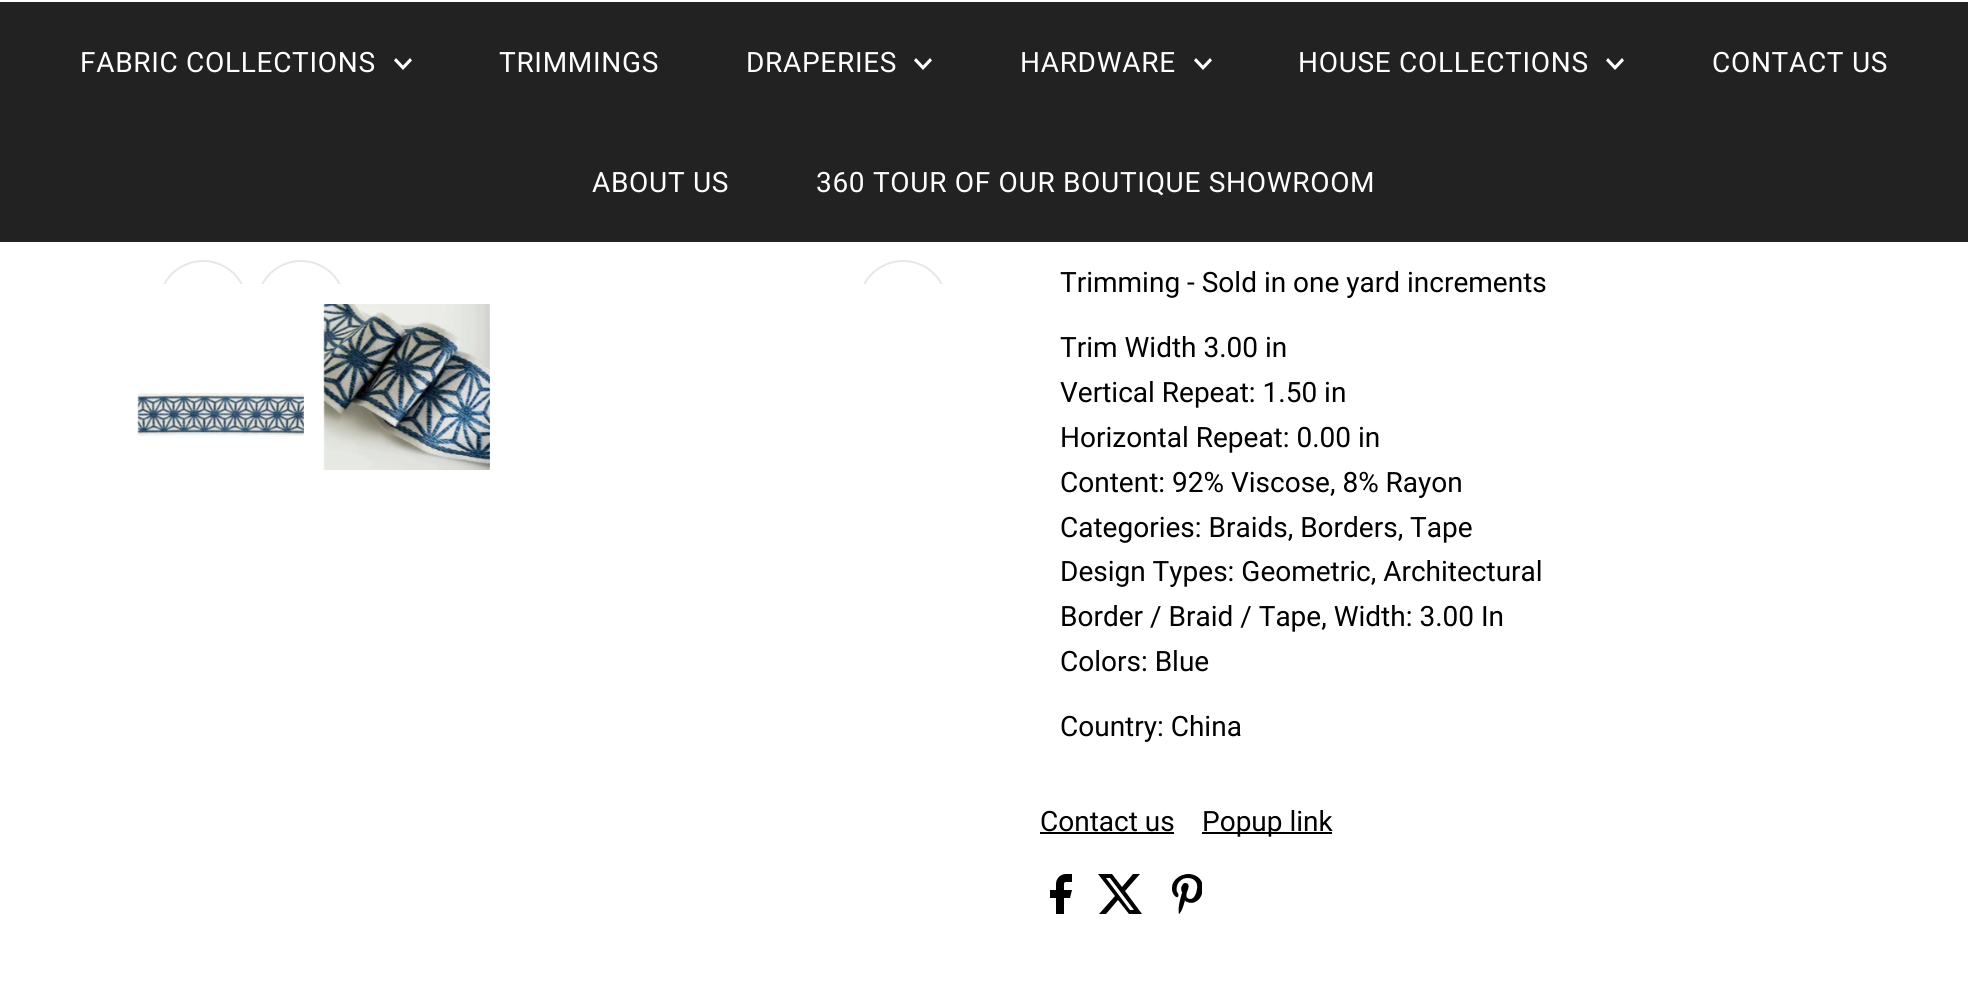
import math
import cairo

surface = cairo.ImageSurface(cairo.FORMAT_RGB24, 1968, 1007)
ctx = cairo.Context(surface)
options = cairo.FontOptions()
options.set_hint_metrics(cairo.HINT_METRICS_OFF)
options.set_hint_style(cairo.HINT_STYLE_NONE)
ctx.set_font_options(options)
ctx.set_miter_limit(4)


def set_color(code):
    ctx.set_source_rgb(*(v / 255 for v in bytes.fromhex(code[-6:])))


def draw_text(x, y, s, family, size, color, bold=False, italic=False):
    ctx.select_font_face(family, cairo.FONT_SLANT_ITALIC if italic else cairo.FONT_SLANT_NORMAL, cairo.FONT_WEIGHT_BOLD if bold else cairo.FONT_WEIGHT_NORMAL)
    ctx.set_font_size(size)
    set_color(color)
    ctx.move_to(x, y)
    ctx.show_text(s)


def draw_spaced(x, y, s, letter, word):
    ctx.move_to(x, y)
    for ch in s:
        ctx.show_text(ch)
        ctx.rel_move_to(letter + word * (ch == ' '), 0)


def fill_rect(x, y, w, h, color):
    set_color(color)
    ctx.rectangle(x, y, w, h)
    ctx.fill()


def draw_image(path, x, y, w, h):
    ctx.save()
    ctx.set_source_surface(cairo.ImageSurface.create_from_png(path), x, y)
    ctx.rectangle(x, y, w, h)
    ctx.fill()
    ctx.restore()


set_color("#ffffff")
ctx.paint()
fill_rect(0, 2, 1968, 240, "#222222")
ctx.select_font_face("Roboto")
ctx.set_font_size(28)
set_color("#ffffff")
draw_spaced(80, 72, "FABRIC COLLECTIONS", 0.7, 0)
ctx.new_path()
ctx.move_to(410, 58)
ctx.line_to(403, 65.5)
ctx.line_to(396, 58)
ctx.line_to(394, 60.5)
ctx.line_to(403, 70)
ctx.line_to(412, 60.5)
ctx.close_path()
ctx.fill()
draw_spaced(499, 72, "TRIMMINGS", 0.7, 0)
draw_spaced(746, 72, "DRAPERIES", 0.7, 0)
ctx.new_path()
ctx.move_to(930, 58)
ctx.line_to(923, 65.5)
ctx.line_to(916, 58)
ctx.line_to(914, 60.5)
ctx.line_to(923, 70)
ctx.line_to(932, 60.5)
ctx.close_path()
ctx.fill()
draw_spaced(1020, 72, "HARDWARE", 0.7, 0)
ctx.new_path()
ctx.move_to(1210, 58)
ctx.line_to(1203, 65.5)
ctx.line_to(1196, 58)
ctx.line_to(1194, 60.5)
ctx.line_to(1203, 70)
ctx.line_to(1212, 60.5)
ctx.close_path()
ctx.fill()
draw_spaced(1298, 72, "HOUSE COLLECTIONS", 0.7, 0)
ctx.new_path()
ctx.move_to(1622, 58)
ctx.line_to(1615, 65.5)
ctx.line_to(1608, 58)
ctx.line_to(1606, 60.5)
ctx.line_to(1615, 70)
ctx.line_to(1624, 60.5)
ctx.close_path()
ctx.fill()
draw_spaced(1712, 72, "CONTACT US", 0.7, 0)
draw_spaced(592, 192, "ABOUT US", 0.7, 0)
draw_spaced(816, 192, "360 TOUR OF OUR BOUTIQUE SHOWROOM", 0.7, 0)
ctx.save()
ctx.rectangle(138, 240, 830, 44)
ctx.clip()
ctx.arc(203, 305, 44, 0, 2 * math.pi)
set_color("#e7e7e7")
ctx.stroke()
ctx.arc(301, 305, 44, 0, 2 * math.pi)
ctx.stroke()
ctx.arc(903, 305, 44, 0, 2 * math.pi)
ctx.stroke()
ctx.restore()
draw_image("assets/img1.png", 137, 392, 167, 45)
draw_image("assets/img2.png", 323, 304, 167, 166)
draw_text(1060, 292, "Trimming - Sold in one yard increments", "Roboto", 28, "#000000")
draw_text(1060, 357, "Trim Width 3.00 in", "Roboto", 28, "#000000")
draw_text(1060, 402, "Vertical Repeat: 1.50 in", "Roboto", 28, "#000000")
draw_text(1060, 447, "Horizontal Repeat: 0.00 in", "Roboto", 28, "#000000")
draw_text(1060, 492, "Content: 92% Viscose, 8% Rayon", "Roboto", 28, "#000000")
draw_text(1060, 537, "Categories: Braids, Borders, Tape", "Roboto", 28, "#000000")
draw_text(1060, 581, "Design Types: Geometric, Architectural", "Roboto", 28, "#000000")
draw_text(1060, 626, "Border / Braid / Tape, Width: 3.00 In", "Roboto", 28, "#000000")
draw_text(1060, 671, "Colors: Blue", "Roboto", 28, "#000000")
draw_text(1060, 736, "Country: China", "Roboto", 28, "#000000")
draw_text(1040, 831, "Contact us", "Roboto", 28, "#000000")
fill_rect(1040, 832, 134, 2, "#000000")
fill_rect(1202, 832, 130, 2, "#000000")
draw_text(1202, 831, "Popup link", "Roboto", 28, "#000000")
draw_image("assets/img3.png", 1050, 874, 22, 40)
ctx.new_path()
ctx.move_to(1133, 874)
ctx.line_to(1140, 874)
ctx.line_to(1125, 891)
ctx.line_to(1142, 914)
ctx.line_to(1129, 914)
ctx.line_to(1118, 900)
ctx.line_to(1106, 914)
ctx.line_to(1099, 914)
ctx.line_to(1115, 896)
ctx.line_to(1098, 874)
ctx.line_to(1112, 874)
ctx.line_to(1122, 887)
ctx.close_path()
ctx.move_to(1130, 910)
ctx.line_to(1134, 910)
ctx.line_to(1110, 878)
ctx.line_to(1106, 878)
ctx.close_path()
ctx.fill()
draw_image("assets/img4.png", 1172, 874, 30, 40)
surface.write_to_png("output.png")
